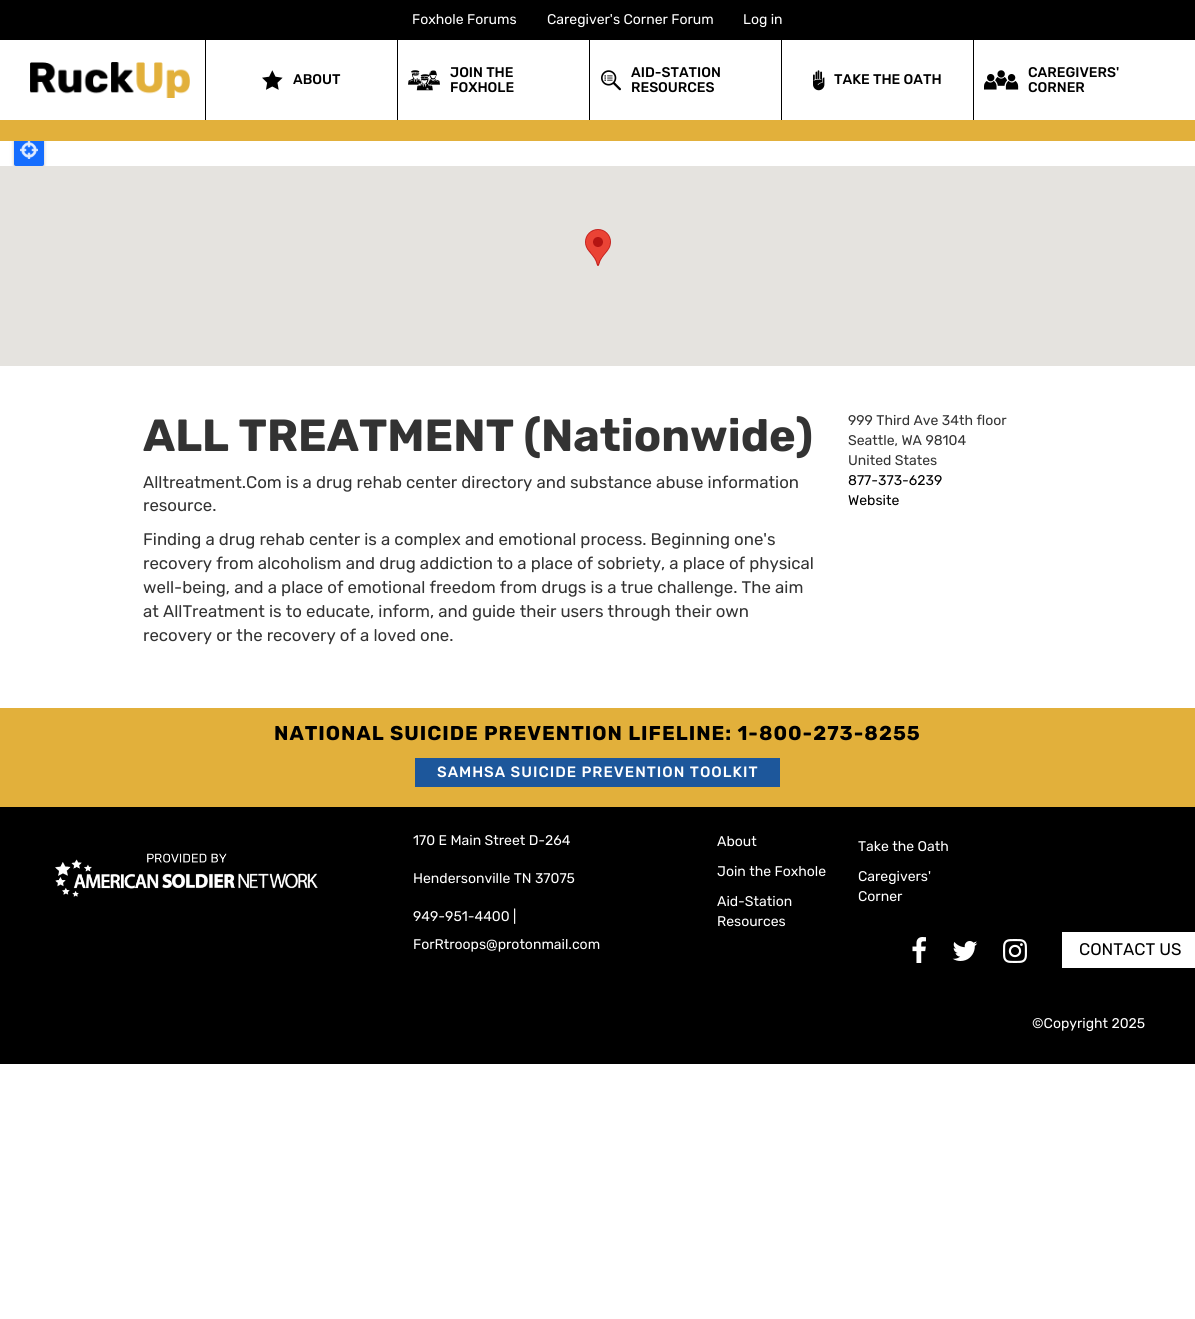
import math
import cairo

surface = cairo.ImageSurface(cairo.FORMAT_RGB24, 1195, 1319)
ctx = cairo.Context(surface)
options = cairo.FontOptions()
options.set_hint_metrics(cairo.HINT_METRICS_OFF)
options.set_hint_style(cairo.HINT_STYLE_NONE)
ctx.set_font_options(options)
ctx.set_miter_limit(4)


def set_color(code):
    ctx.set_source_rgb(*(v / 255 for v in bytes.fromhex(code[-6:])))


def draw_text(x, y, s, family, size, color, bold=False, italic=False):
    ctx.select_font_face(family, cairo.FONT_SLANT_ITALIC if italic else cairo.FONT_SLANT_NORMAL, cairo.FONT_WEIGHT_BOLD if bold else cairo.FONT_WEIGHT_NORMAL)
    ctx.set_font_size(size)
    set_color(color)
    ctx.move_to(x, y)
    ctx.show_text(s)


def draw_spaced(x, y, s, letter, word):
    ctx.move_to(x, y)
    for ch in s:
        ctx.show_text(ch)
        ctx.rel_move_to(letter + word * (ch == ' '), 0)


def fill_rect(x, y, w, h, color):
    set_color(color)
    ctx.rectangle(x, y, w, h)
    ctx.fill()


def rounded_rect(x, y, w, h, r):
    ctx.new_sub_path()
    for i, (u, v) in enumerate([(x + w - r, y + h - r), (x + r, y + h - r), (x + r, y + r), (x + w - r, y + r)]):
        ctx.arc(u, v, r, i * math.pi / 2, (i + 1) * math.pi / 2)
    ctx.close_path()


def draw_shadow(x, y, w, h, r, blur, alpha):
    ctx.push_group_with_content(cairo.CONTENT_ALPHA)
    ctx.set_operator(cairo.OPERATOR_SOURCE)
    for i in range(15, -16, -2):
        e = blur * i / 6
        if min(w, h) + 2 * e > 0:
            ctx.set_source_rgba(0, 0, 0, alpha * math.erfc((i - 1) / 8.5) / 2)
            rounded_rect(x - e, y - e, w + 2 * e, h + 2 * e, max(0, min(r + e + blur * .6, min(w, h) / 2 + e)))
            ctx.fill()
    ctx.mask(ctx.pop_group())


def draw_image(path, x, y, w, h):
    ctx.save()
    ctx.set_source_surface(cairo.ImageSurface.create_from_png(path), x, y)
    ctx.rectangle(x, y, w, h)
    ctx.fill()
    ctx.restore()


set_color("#ffffff")
ctx.paint()
fill_rect(0, 0, 1195, 40, "#000000")
draw_text(412, 24, "Foxhole Forums", "Rubik", 14, "#ffffff")
draw_text(547, 24, "Caregiver's Corner Forum", "Rubik", 14, "#ffffff")
draw_text(743, 24, "Log in", "Rubik", 14, "#ffffff")
draw_image("assets/img1.png", 30, 62, 160, 36)
fill_rect(205, 40, 1, 80, "#000000")
draw_image("assets/img2.png", 262, 70, 21, 20)
draw_text(293, 84, "ABOUT", "Rubik Medium", 14, "#000000")
fill_rect(397, 40, 1, 80, "#000000")
draw_image("assets/img3.png", 408, 70, 32, 21)
draw_text(450, 77, "JOIN THE", "Rubik Medium", 14, "#000000")
draw_text(450, 92, "FOXHOLE", "Rubik Medium", 14, "#000000")
fill_rect(589, 40, 1, 80, "#000000")
draw_image("assets/img4.png", 601, 70, 20, 21)
draw_text(631, 77, "AID-STATION", "Rubik Medium", 14, "#000000")
draw_text(631, 92, "RESOURCES", "Rubik Medium", 14, "#000000")
fill_rect(781, 40, 1, 80, "#000000")
draw_image("assets/img5.png", 813, 70, 12, 21)
draw_text(834, 84, "TAKE THE OATH", "Rubik Medium", 14, "#000000")
fill_rect(973, 40, 1, 80, "#000000")
draw_image("assets/img6.png", 984, 70, 35, 20)
draw_text(1028, 77, "CAREGIVERS'", "Rubik Medium", 14, "#000000")
draw_text(1028, 92, "CORNER", "Rubik Medium", 14, "#000000")
set_color("#000000")
draw_shadow(14, 135, 30, 32, 2, 2.5, 0.12)
draw_shadow(14, 136, 30, 32, 2, 1, 0.14)
set_color("#156dfe")
rounded_rect(14, 134, 30, 32, 2)
ctx.fill()
fill_rect(0, 120, 1195, 21, "#e2b03b")
draw_image("assets/img7.png", 20, 141, 18, 18)
fill_rect(0, 166, 1195, 200, "#e5e3df")
draw_image("assets/img8.png", 585, 229, 26, 37)
draw_text(143, 451, "ALL TREATMENT (Nationwide)", "Rubik", 45, "#333333", bold=True)
draw_text(143, 488, "Alltreatment.Com is a drug rehab center directory and substance abuse information", "Rubik", 16.8, "#333333")
draw_text(143, 511, "resource.", "Rubik", 16.8, "#333333")
draw_text(143, 545, "Finding a drug rehab center is a complex and emotional process. Beginning one's", "Rubik", 16.8, "#333333")
draw_text(143, 569, "recovery from alcoholism and drug addiction to a place of sobriety, a place of physical", "Rubik", 16.8, "#333333")
draw_text(143, 593, "well-being, and a place of emotional freedom from drugs is a true challenge. The aim", "Rubik", 16.8, "#333333")
draw_text(143, 617, "at AllTreatment is to educate, inform, and guide their users through their own", "Rubik", 16.8, "#333333")
draw_text(143, 641, "recovery or the recovery of a loved one.", "Rubik", 16.8, "#333333")
draw_text(848, 425, "999 Third Ave 34th floor", "Rubik", 14, "#333333")
draw_text(848, 445, "Seattle, WA 98104", "Rubik", 14, "#333333")
draw_text(848, 465, "United States", "Rubik", 14, "#333333")
draw_text(848, 485, "877-373-6239", "Rubik", 14, "#000000")
draw_text(848, 505, "Website", "Rubik", 14, "#000000")
fill_rect(0, 807, 1195, 257, "#000000")
fill_rect(0, 708, 1195, 99, "#e2b03b")
ctx.select_font_face("Rubik", cairo.FONT_SLANT_NORMAL, cairo.FONT_WEIGHT_BOLD)
ctx.set_font_size(20)
set_color("#000000")
draw_spaced(274, 740, "NATIONAL SUICIDE PREVENTION LIFELINE: 1-800-273-8255", 1, 0)
fill_rect(415, 758, 365, 29, "#1d579b")
ctx.select_font_face("Rubik Medium")
ctx.set_font_size(15)
set_color("#ffffff")
draw_spaced(437, 777, "SAMHSA SUICIDE PREVENTION TOOLKIT", 1, 0)
draw_image("assets/img9.png", 55, 853, 263, 44)
draw_text(413, 845, "170 E Main Street D-264", "Rubik", 14, "#ffffff")
draw_text(413, 883, "Hendersonville TN 37075", "Rubik", 14, "#ffffff")
draw_text(413, 921, "949-951-4400 |", "Rubik", 14, "#ffffff")
draw_text(413, 949, "ForRtroops@protonmail.com", "Rubik", 14, "#ffffff")
draw_text(717, 846, "About", "Rubik", 14, "#ffffff")
draw_text(858, 851, "Take the Oath", "Rubik", 14, "#ffffff")
draw_text(717, 876, "Join the Foxhole", "Rubik", 14, "#ffffff")
draw_text(858, 881, "Caregivers'", "Rubik", 14, "#ffffff")
draw_text(858, 901, "Corner", "Rubik", 14, "#ffffff")
draw_text(717, 906, "Aid-Station", "Rubik", 14, "#ffffff")
draw_text(717, 926, "Resources", "Rubik", 14, "#ffffff")
draw_image("assets/img10.png", 912, 937, 14, 26)
draw_image("assets/img11.png", 952, 941, 26, 20)
draw_image("assets/img12.png", 1003, 939, 24, 24)
fill_rect(1062, 932, 133, 36, "#ffffff")
draw_text(1079, 955, "CONTACT US", "Rubik", 16.8, "#000000")
draw_text(1032, 1028, "©Copyright 2025", "Rubik", 14, "#ffffff")
surface.write_to_png("output.png")
